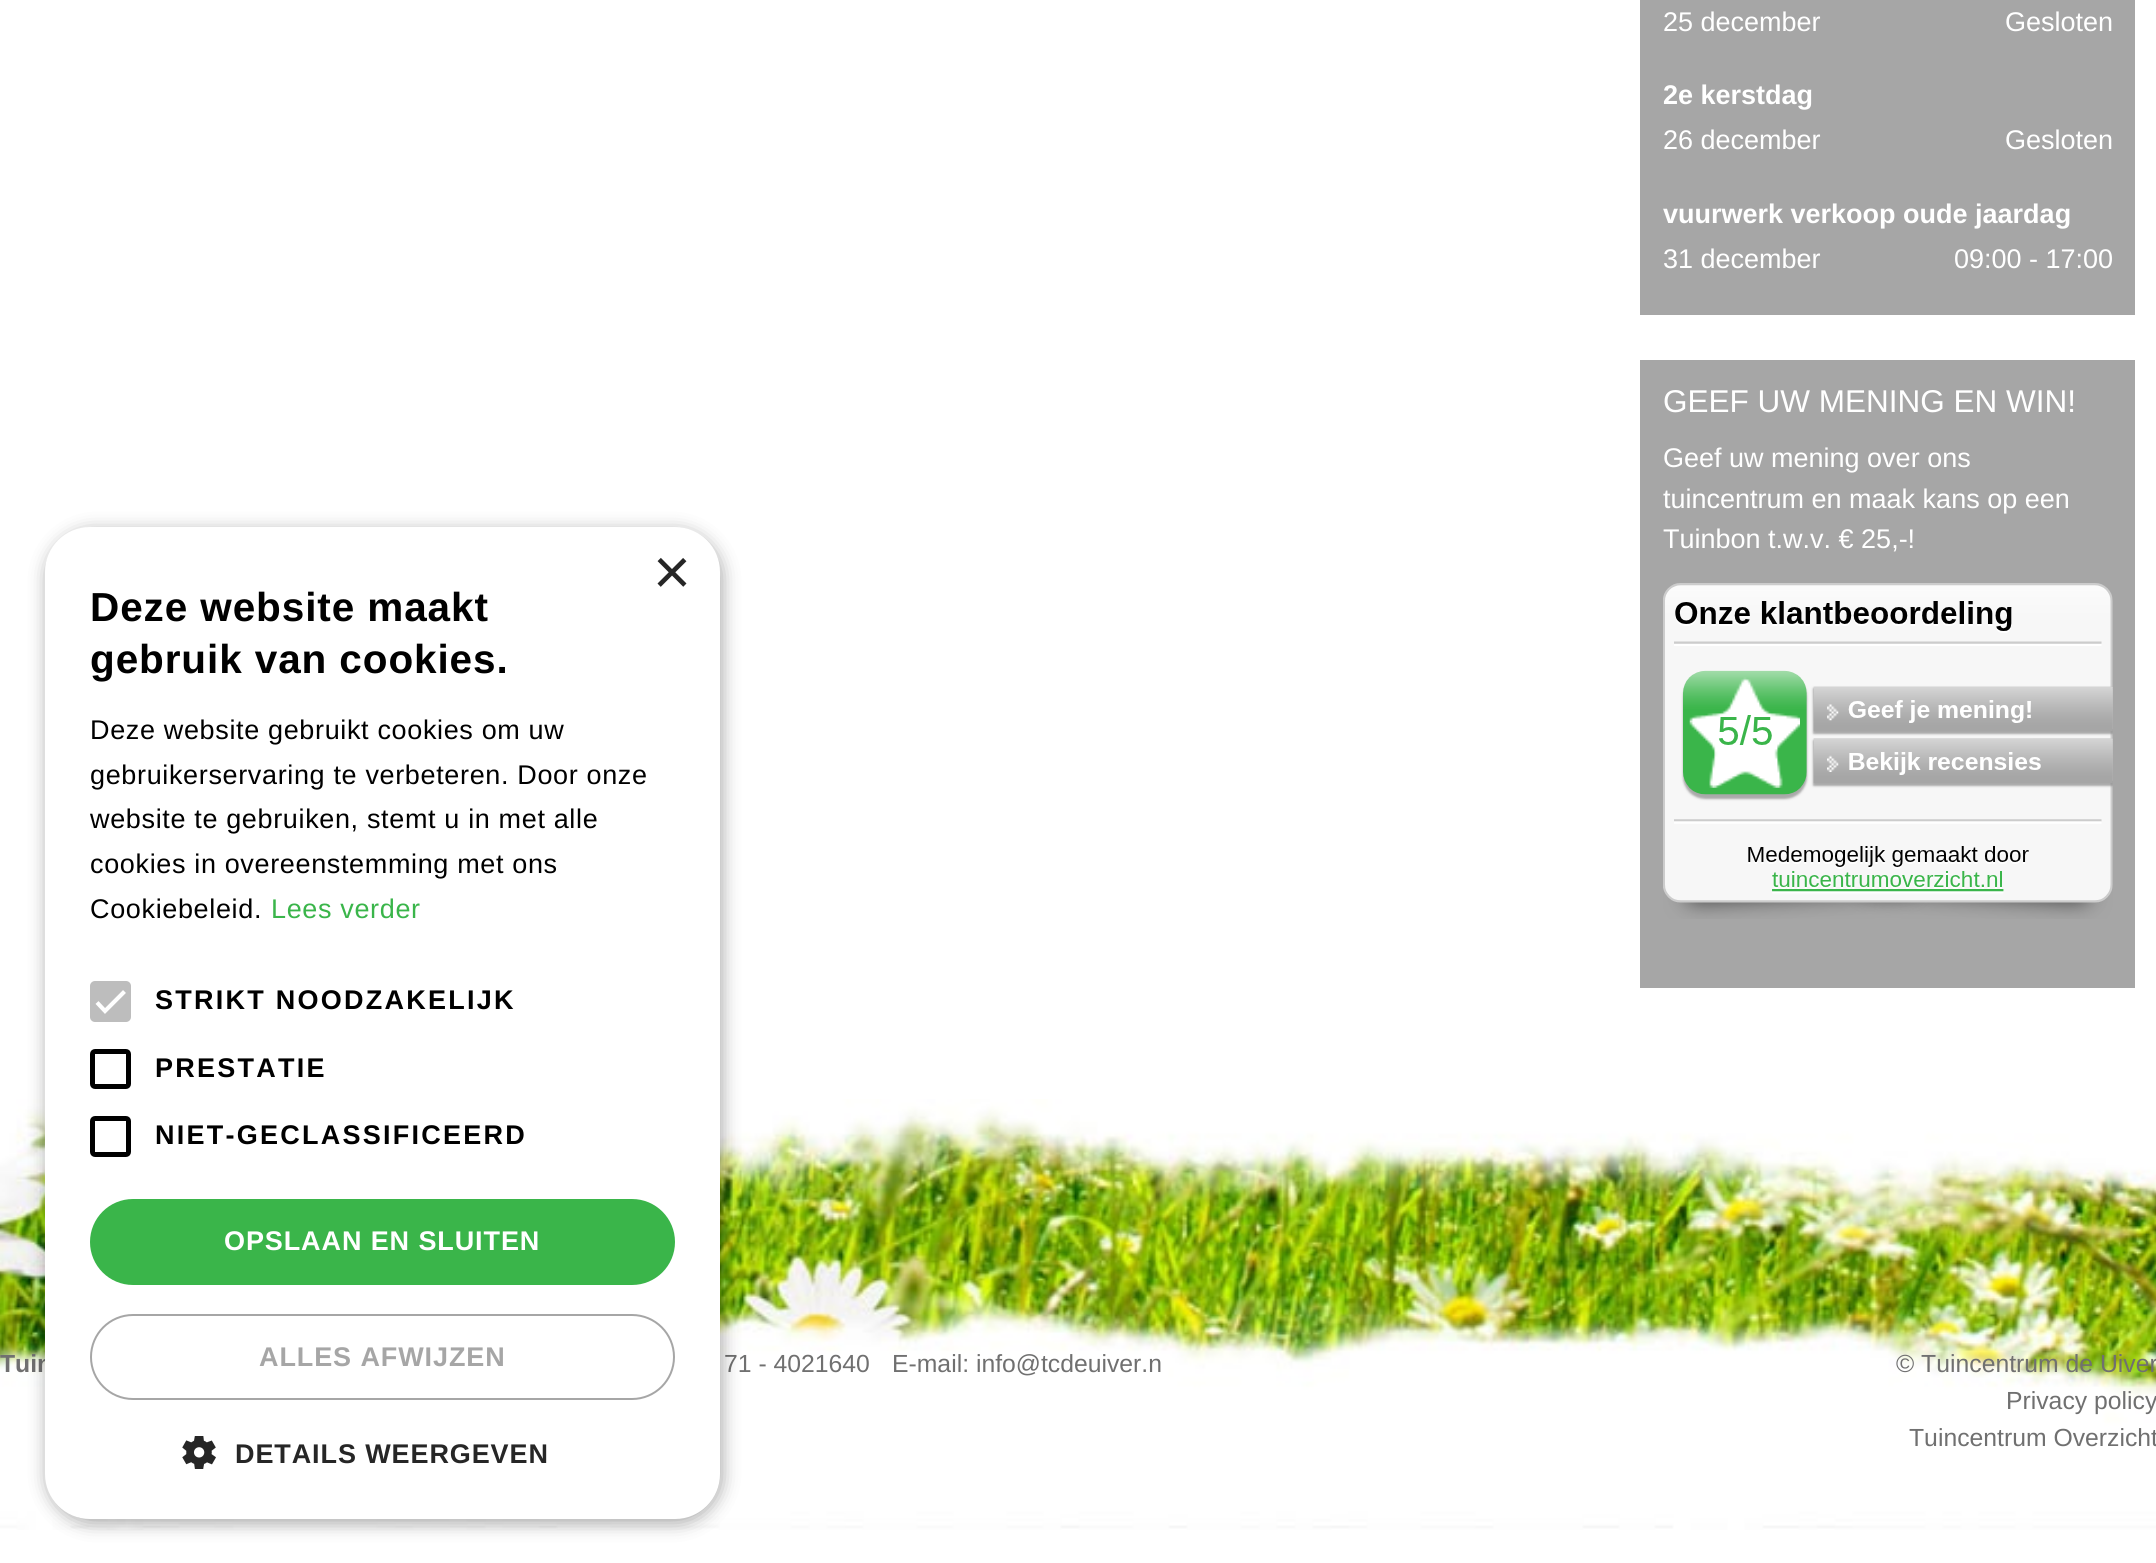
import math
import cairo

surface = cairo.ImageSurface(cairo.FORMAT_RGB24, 2156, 1563)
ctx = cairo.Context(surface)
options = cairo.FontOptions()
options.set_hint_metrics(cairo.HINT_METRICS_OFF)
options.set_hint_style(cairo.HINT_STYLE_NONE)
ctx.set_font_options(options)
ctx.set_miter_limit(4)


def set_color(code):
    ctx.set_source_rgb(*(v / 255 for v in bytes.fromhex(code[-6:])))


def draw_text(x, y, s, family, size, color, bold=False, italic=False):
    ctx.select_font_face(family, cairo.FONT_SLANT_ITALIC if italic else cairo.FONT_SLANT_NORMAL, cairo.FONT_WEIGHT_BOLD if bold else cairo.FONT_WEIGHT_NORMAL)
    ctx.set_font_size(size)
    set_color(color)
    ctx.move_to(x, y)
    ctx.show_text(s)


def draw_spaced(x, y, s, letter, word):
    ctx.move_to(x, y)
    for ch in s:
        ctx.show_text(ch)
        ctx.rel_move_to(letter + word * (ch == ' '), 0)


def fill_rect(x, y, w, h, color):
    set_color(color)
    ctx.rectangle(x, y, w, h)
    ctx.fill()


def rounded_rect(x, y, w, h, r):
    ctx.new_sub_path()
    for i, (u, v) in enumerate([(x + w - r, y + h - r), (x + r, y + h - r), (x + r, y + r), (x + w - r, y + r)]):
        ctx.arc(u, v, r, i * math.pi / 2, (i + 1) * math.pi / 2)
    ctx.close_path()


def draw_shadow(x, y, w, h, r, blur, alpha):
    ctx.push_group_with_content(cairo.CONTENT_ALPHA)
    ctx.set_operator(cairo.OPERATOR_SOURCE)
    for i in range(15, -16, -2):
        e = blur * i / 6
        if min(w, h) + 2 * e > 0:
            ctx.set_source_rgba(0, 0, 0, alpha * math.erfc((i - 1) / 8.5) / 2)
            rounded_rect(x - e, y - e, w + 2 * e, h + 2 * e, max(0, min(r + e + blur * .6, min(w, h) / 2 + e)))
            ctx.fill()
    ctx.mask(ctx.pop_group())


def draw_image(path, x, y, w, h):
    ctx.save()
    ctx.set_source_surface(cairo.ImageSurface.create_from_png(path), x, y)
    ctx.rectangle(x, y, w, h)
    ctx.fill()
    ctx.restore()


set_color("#ffffff")
ctx.paint()
draw_image("assets/img1.png", 0, 1099, 2156, 431)
fill_rect(1640, 0, 495, 315, "#a6a6a6")
draw_text(1663, 31, "25 december", "Liberation Sans", 27, "#ffffff")
draw_text(2005, 31, "Gesloten", "Liberation Sans", 27, "#ffffff")
draw_text(1663, 104, "2e kerstdag", "Liberation Sans", 27, "#ffffff", bold=True)
draw_text(1663, 149, "26 december", "Liberation Sans", 27, "#ffffff")
draw_text(2005, 149, "Gesloten", "Liberation Sans", 27, "#ffffff")
draw_text(1663, 223, "vuurwerk verkoop oude jaardag", "Liberation Sans", 27, "#ffffff", bold=True)
draw_text(1663, 268, "31 december", "Liberation Sans", 27, "#ffffff")
draw_text(1954, 268, "09:00 - 17:00", "Liberation Sans", 27, "#ffffff")
fill_rect(1640, 360, 495, 628, "#a6a6a6")
draw_text(1663, 412, "GEEF UW MENING EN WIN!", "Liberation Sans", 31.5, "#ffffff")
draw_text(1663, 467, "Geef uw mening over ons", "Liberation Sans", 27, "#ffffff")
draw_text(1663, 508, "tuincentrum en maak kans op een", "Liberation Sans", 27, "#ffffff")
draw_text(1663, 548, "Tuinbon t.w.v. € 25,-!", "Liberation Sans", 27, "#ffffff")
draw_image("assets/img2.png", 1663, 583, 450, 336)
draw_text(0, 1372, "Tuin", "Liberation Sans", 24.75, "#707070", bold=True)
draw_text(724, 1372, "71 - 4021640", "Liberation Sans", 24.75, "#707070")
draw_text(892, 1372, "E-mail: info@tcdeuiver.n", "Liberation Sans", 24.75, "#707070")
draw_text(1896, 1372, "© Tuincentrum de Uiver", "Liberation Sans", 24.75, "#707070")
draw_text(2006, 1409, "Privacy policy", "Liberation Sans", 24.75, "#707070")
draw_text(1909, 1446, "Tuincentrum Overzicht", "Liberation Sans", 24.75, "#707070")
set_color("#000000")
draw_shadow(47, 531, 675, 992, 45, 9, 0.35)
set_color("#ffffff")
rounded_rect(45, 527, 675, 992, 45)
ctx.fill()
draw_text(653, 594, "×", "Liberation Sans", 65, "#262626")
ctx.select_font_face("Liberation Sans", cairo.FONT_SLANT_NORMAL, cairo.FONT_WEIGHT_BOLD)
ctx.set_font_size(40.5)
set_color("#000000")
draw_spaced(90, 621, "Deze website maakt", 0.9, 0)
draw_spaced(90, 673, "gebruik van cookies.", 0.9, 0)
ctx.select_font_face("Liberation Sans")
ctx.set_font_size(27)
draw_spaced(90, 739, "Deze website gebruikt cookies om uw", 0.65, 0)
draw_spaced(90, 784, "gebruikerservaring te verbeteren. Door onze", 0.65, 0)
draw_spaced(90, 828, "website te gebruiken, stemt u in met alle", 0.65, 0)
draw_spaced(90, 873, "cookies in overeenstemming met ons", 0.65, 0)
draw_spaced(90, 918, "Cookiebeleid.", 0.65, 0)
set_color("#3ab54a")
draw_spaced(271, 918, "Lees verder", 0.65, 0)
set_color("#bdbdbd")
rounded_rect(90, 981, 41, 41, 5)
ctx.fill()
ctx.new_path()
ctx.move_to(97, 1002.5)
ctx.line_to(105, 1011)
ctx.line_to(124.5, 991.5)
set_color("#ffffff")
ctx.set_line_width(4.1)
ctx.stroke()
ctx.select_font_face("Liberation Sans", cairo.FONT_SLANT_NORMAL, cairo.FONT_WEIGHT_BOLD)
set_color("#000000")
draw_spaced(155, 1009, "STRIKT NOODZAKELIJK", 2.25, 0)
rounded_rect(92.5, 1051.5, 36, 35, 2.5)
ctx.set_line_width(5)
ctx.stroke()
draw_spaced(155, 1077, "PRESTATIE", 2.25, 0)
rounded_rect(92.5, 1118.5, 36, 36, 2.5)
ctx.stroke()
draw_spaced(155, 1144, "NIET-GECLASSIFICEERD", 2.25, 0)
set_color("#3ab54a")
rounded_rect(90, 1199, 585, 86, 43)
ctx.fill()
set_color("#ffffff")
draw_spaced(224, 1250, "OPSLAAN EN SLUITEN", 0.9, 0)
rounded_rect(91, 1315, 583, 84, 42)
set_color("#a6a6a6")
ctx.set_line_width(2)
ctx.stroke()
draw_spaced(259, 1366, "ALLES AFWIJZEN", 0.9, 0)
draw_image("assets/img3.png", 182, 1436, 34, 33)
set_color("#262626")
draw_spaced(235, 1463, "DETAILS WEERGEVEN", 0.9, 0)
surface.write_to_png("output.png")
